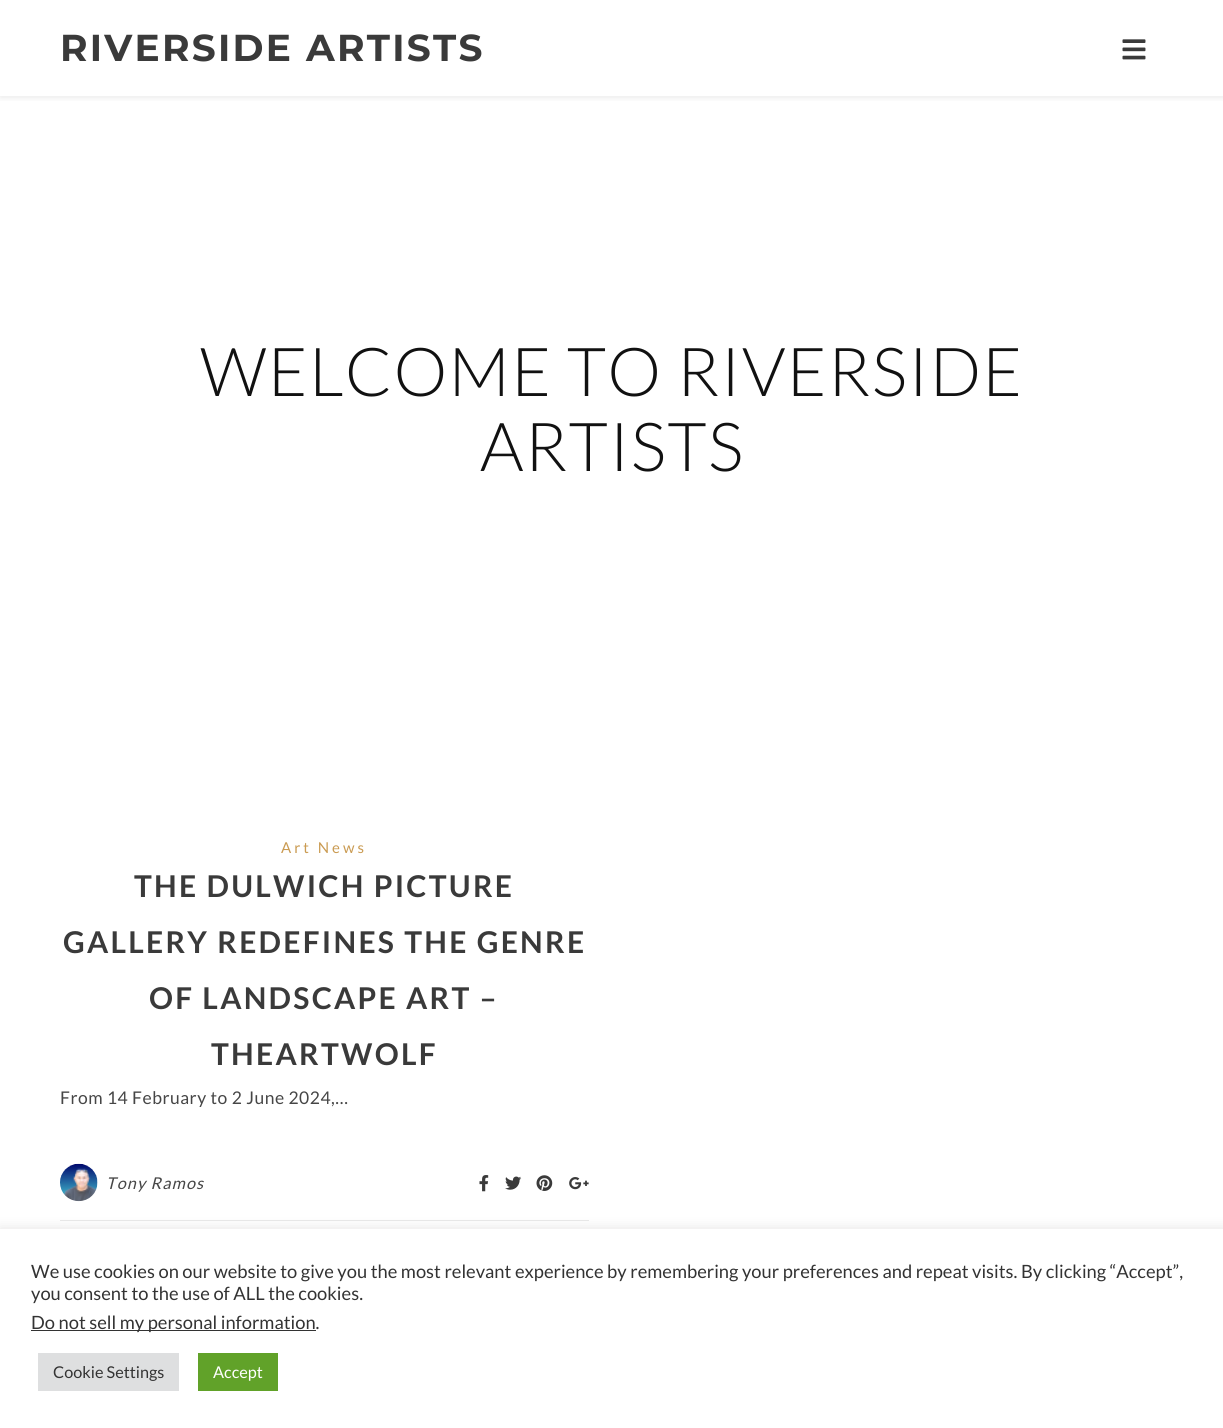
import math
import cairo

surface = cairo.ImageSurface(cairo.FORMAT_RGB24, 1223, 1428)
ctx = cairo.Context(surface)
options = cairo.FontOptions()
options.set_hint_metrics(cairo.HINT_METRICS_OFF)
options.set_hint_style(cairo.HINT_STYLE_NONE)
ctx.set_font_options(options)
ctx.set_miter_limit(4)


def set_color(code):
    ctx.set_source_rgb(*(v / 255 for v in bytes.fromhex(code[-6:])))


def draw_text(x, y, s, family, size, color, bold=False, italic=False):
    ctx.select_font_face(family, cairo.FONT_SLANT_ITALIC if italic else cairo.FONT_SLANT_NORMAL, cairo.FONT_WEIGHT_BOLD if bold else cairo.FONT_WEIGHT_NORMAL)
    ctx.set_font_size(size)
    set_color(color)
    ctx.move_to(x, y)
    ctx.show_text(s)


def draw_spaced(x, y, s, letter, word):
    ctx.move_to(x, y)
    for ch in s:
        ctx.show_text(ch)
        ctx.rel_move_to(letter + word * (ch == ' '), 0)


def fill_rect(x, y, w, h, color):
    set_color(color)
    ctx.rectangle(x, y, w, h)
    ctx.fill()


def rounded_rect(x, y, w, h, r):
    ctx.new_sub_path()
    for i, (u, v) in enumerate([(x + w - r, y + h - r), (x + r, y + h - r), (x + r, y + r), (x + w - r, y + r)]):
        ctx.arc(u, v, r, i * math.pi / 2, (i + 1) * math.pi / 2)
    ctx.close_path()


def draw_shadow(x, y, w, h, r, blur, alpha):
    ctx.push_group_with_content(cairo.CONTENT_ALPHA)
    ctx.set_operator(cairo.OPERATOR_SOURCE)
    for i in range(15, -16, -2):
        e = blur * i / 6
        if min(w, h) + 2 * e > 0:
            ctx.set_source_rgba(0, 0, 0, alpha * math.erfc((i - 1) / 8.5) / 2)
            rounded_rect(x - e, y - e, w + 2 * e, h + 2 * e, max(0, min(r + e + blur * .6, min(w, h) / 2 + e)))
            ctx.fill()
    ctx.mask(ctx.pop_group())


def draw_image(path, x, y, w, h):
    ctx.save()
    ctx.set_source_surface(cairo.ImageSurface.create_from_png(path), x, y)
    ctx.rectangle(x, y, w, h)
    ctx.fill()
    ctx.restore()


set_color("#ffffff")
ctx.paint()
ctx.save()
ctx.rectangle(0, 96, 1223, 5)
ctx.clip()
set_color("#3a3a3a")
draw_shadow(0, 1, 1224, 97, 0, 3, 0.1)
ctx.restore()
ctx.select_font_face("Montserrat", cairo.FONT_SLANT_NORMAL, cairo.FONT_WEIGHT_BOLD)
ctx.set_font_size(37.5)
set_color("#3a3a3a")
draw_spaced(60, 61, "RIVERSIDE ARTISTS", 2.25, 0)
draw_image("assets/img1.png", 1122, 39, 24, 21)
ctx.select_font_face("Lato Light")
ctx.set_font_size(67.5)
set_color("#111111")
draw_spaced(200, 396, "WELCOME TO RIVERSIDE", 1.25, 0)
draw_spaced(480, 471, "ARTISTS", 1.25, 0)
ctx.select_font_face("Lato")
ctx.set_font_size(15)
set_color("#ca9b52")
draw_spaced(281, 853, "Art News", 3, 0)
ctx.select_font_face("Lato", cairo.FONT_SLANT_NORMAL, cairo.FONT_WEIGHT_BOLD)
ctx.set_font_size(30)
set_color("#3a3a3a")
draw_spaced(134, 897, "THE DULWICH PICTURE", 2.25, 0)
draw_spaced(63, 953, "GALLERY REDEFINES THE GENRE", 2.25, 0)
draw_spaced(149, 1009, "OF LANDSCAPE ART –", 2.25, 0)
draw_spaced(211, 1065, "THEARTWOLF", 2.25, 0)
ctx.select_font_face("Lato")
ctx.set_font_size(17.5)
set_color("#464646")
draw_spaced(60, 1104, "From 14 February to 2 June 2024,…", 0.5, 0)
fill_rect(60, 1220, 529, 1, "#e8e8e8")
draw_image("assets/img2.png", 60, 1163, 38, 39)
ctx.select_font_face("Lato", cairo.FONT_SLANT_ITALIC)
ctx.set_font_size(16.25)
set_color("#464646")
draw_spaced(106, 1189, "Tony Ramos", 1.1, 0)
draw_image("assets/img3.png", 479, 1175, 10, 17)
draw_image("assets/img4.png", 505, 1176, 17, 14)
draw_image("assets/img5.png", 536, 1175, 17, 16)
draw_image("assets/img6.png", 569, 1177, 20, 13)
set_color("#acabab")
draw_shadow(0, 1228, 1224, 200, 0, 6, 0.3)
fill_rect(0, 1229, 1223, 199, "#ffffff")
draw_text(31, 1278, "We use cookies on our website to give you the most relevant experience by remembering your preferences and repeat visits. By clicking “Accept”,", "Lato", 18.33, "#333333")
draw_text(31, 1300, "you consent to the use of ALL the cookies.", "Lato", 18.33, "#333333")
fill_rect(31, 1330, 285, 1, "#333333")
draw_text(31, 1329, "Do not sell my personal information.", "Lato", 18.33, "#333333")
fill_rect(38, 1353, 141, 38, "#dedfe0")
draw_text(53, 1378, "Cookie Settings", "Lato", 16.25, "#333333")
fill_rect(198, 1353, 80, 38, "#61a229")
draw_text(213, 1378, "Accept", "Lato", 16.25, "#ffffff")
surface.write_to_png("output.png")
